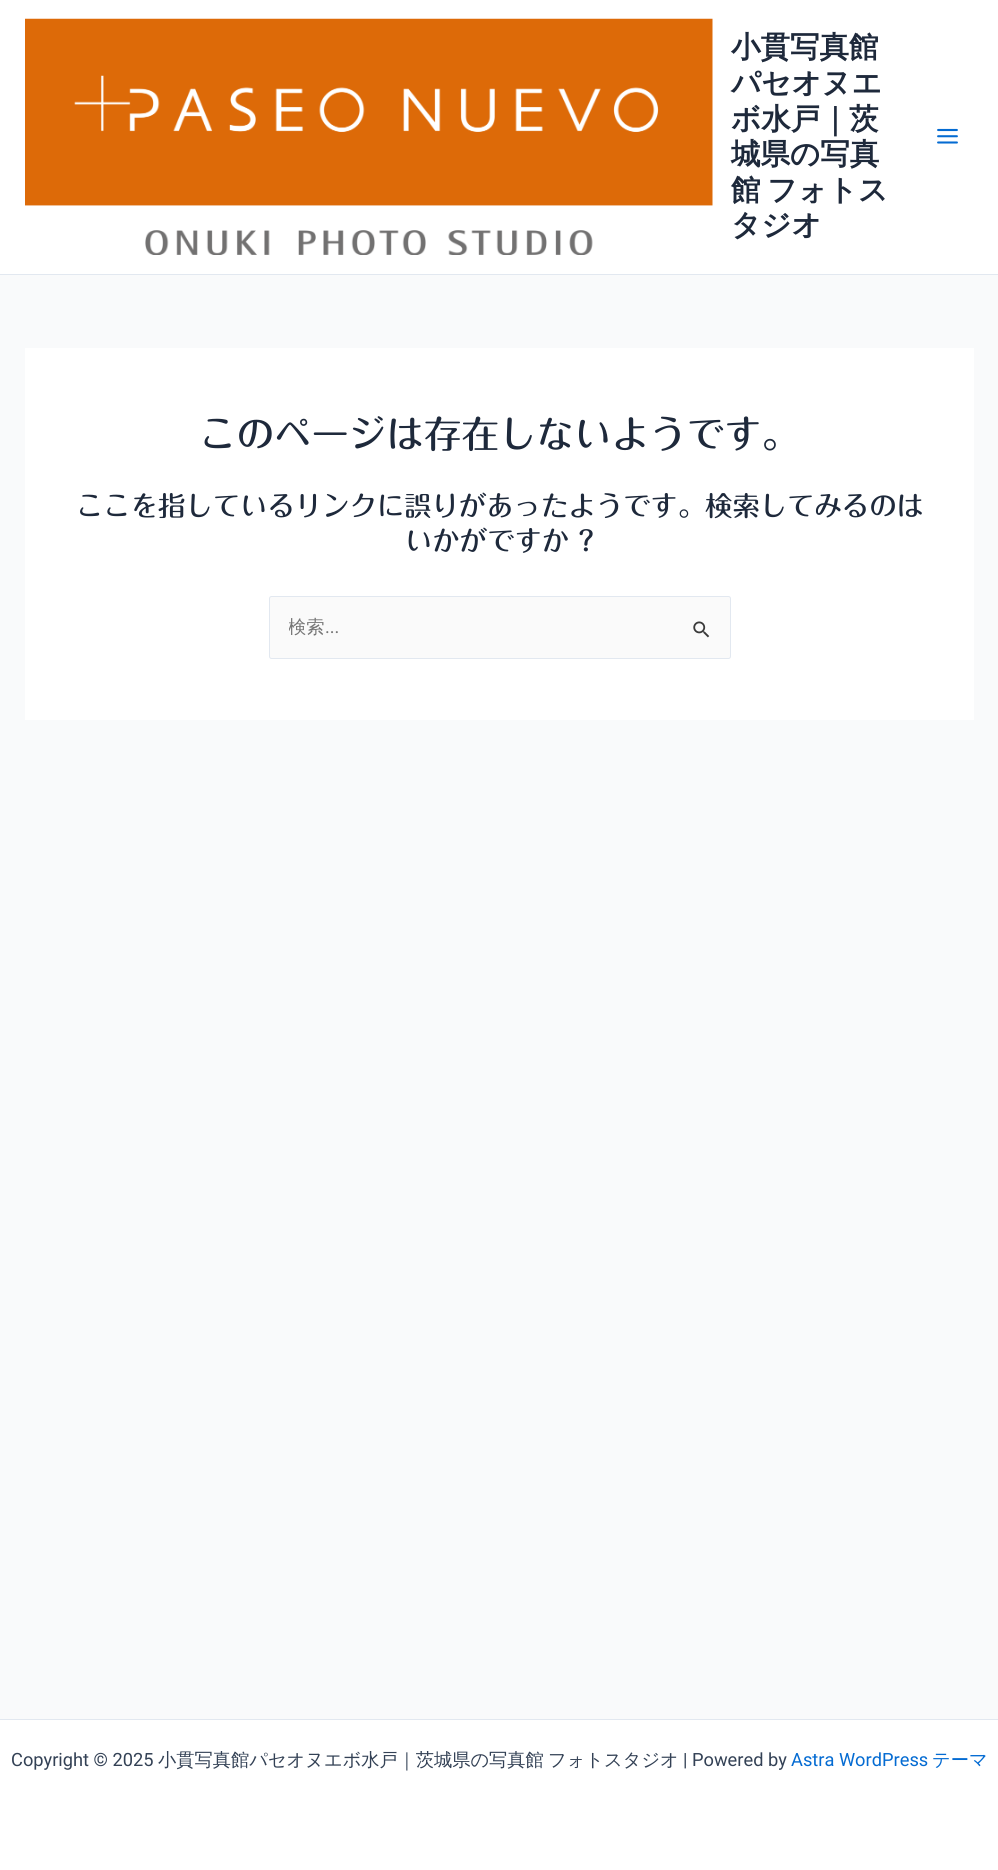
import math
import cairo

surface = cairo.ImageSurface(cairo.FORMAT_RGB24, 998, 1870)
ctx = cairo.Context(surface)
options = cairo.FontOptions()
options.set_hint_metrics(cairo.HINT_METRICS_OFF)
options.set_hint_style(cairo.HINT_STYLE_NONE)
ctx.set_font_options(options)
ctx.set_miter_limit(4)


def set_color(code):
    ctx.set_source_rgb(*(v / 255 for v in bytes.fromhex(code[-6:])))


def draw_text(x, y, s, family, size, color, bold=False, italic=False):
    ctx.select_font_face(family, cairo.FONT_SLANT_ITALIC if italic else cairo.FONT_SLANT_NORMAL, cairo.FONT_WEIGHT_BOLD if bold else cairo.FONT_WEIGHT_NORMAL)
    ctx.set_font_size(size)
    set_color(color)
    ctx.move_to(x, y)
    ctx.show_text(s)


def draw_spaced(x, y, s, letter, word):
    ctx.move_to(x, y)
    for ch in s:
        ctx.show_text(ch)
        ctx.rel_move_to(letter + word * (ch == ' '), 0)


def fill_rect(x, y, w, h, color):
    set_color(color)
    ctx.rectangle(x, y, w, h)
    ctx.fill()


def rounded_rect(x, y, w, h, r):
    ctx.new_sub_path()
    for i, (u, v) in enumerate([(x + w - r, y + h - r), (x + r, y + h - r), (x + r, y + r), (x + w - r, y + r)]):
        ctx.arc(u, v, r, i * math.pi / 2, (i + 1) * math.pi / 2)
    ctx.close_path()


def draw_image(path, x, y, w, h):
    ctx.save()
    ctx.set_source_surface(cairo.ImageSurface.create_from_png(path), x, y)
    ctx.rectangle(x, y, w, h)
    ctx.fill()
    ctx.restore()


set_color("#f9fafb")
ctx.paint()
fill_rect(0, 0, 998, 274, "#ffffff")
fill_rect(0, 274, 998, 1, "#e2e8f0")
draw_image("assets/img1.png", 25, 18, 688, 237)
draw_text(731, 57, "小貫写真館", "WenQuanYi Zen Hei", 29.5, "#1e293b", bold=True)
draw_text(731, 93, "パセオヌエ", "WenQuanYi Zen Hei", 29.5, "#1e293b", bold=True)
draw_text(731, 129, "ボ水戸｜茨", "WenQuanYi Zen Hei", 29.5, "#1e293b", bold=True)
draw_text(731, 164, "城県の写真", "WenQuanYi Zen Hei", 29.5, "#1e293b", bold=True)
draw_spaced(731, 200, "館 フォトス", 0, -2)
draw_text(731, 235, "タジオ", "WenQuanYi Zen Hei", 29.5, "#1e293b", bold=True)
draw_image("assets/img2.png", 937, 128, 21, 16)
fill_rect(25, 348, 949, 372, "#ffffff")
draw_text(199, 448, "このページは存在しないようです。", "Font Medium", 37.5, "#1e293b")
draw_text(76, 516, "ここを指しているリンクに誤りがあったようです。検索してみるのは", "Font Medium", 27.35, "#1e293b")
draw_text(405, 551, "いかがですか ?", "Font Medium", 27.35, "#1e293b")
set_color("#fafafa")
rounded_rect(269.5, 596.5, 461, 62, 2)
ctx.fill_preserve()
set_color("#e2e8f0")
ctx.set_line_width(1)
ctx.stroke()
ctx.save()
ctx.rectangle(289, 616, 380, 24)
ctx.clip()
draw_text(288, 633, "検索", "WenQuanYi Zen Hei Medium", 18.25, "#757575")
ctx.restore()
draw_text(325, 633, "...", "Roboto", 18.25, "#757575")
draw_image("assets/img3.png", 693, 621, 17, 17)
fill_rect(0, 1720, 998, 150, "#ffffff")
fill_rect(0, 1719, 998, 1, "#e2e8f0")
draw_text(11, 1766, "Copyright © 2025", "Roboto", 18.25, "#334155")
draw_text(158, 1766, "小貫写真館パセオヌエボ水戸｜茨城県の写真館", "WenQuanYi Zen Hei Medium", 18.25, "#334155")
draw_text(548, 1766, "フォトスタジオ", "WenQuanYi Zen Hei Medium", 18.25, "#334155")
draw_text(683, 1766, "| Powered by", "Roboto", 18.25, "#334155")
draw_text(791, 1766, "Astra WordPress", "Roboto", 18.25, "#046bd2")
draw_text(932, 1766, "テーマ", "WenQuanYi Zen Hei Medium", 18.25, "#046bd2")
surface.write_to_png("output.png")
